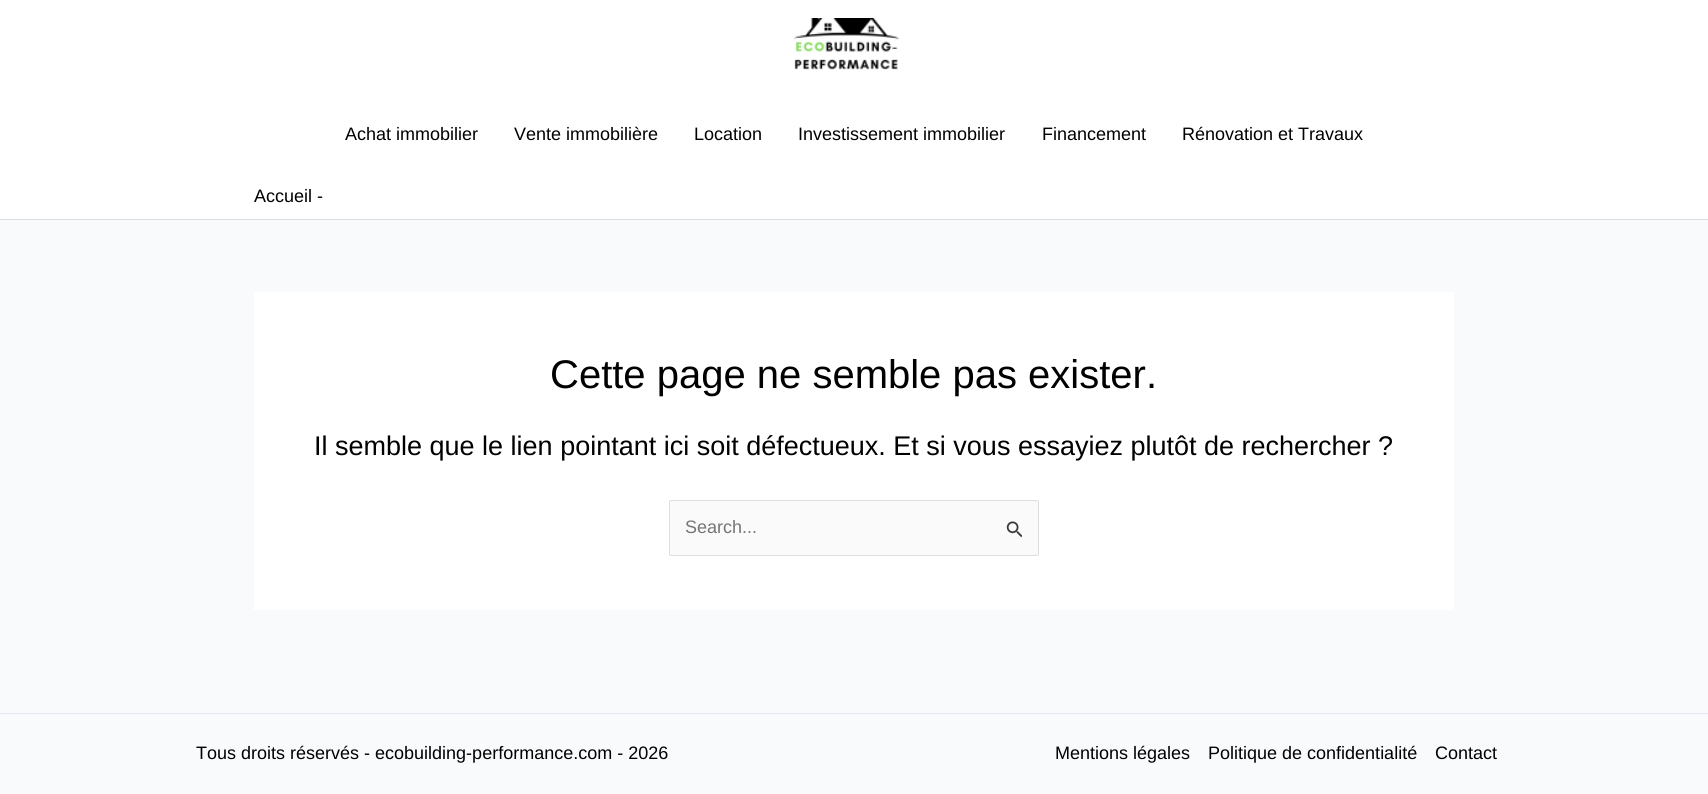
import math
import cairo

surface = cairo.ImageSurface(cairo.FORMAT_RGB24, 1708, 794)
ctx = cairo.Context(surface)
options = cairo.FontOptions()
options.set_hint_metrics(cairo.HINT_METRICS_OFF)
options.set_hint_style(cairo.HINT_STYLE_NONE)
ctx.set_font_options(options)
ctx.set_miter_limit(4)


def set_color(code):
    ctx.set_source_rgb(*(v / 255 for v in bytes.fromhex(code[-6:])))


def draw_text(x, y, s, family, size, color, bold=False, italic=False):
    ctx.select_font_face(family, cairo.FONT_SLANT_ITALIC if italic else cairo.FONT_SLANT_NORMAL, cairo.FONT_WEIGHT_BOLD if bold else cairo.FONT_WEIGHT_NORMAL)
    ctx.set_font_size(size)
    set_color(color)
    ctx.move_to(x, y)
    ctx.show_text(s)


def fill_rect(x, y, w, h, color):
    set_color(color)
    ctx.rectangle(x, y, w, h)
    ctx.fill()


def rounded_rect(x, y, w, h, r):
    ctx.new_sub_path()
    for i, (u, v) in enumerate([(x + w - r, y + h - r), (x + r, y + h - r), (x + r, y + r), (x + w - r, y + r)]):
        ctx.arc(u, v, r, i * math.pi / 2, (i + 1) * math.pi / 2)
    ctx.close_path()


def draw_image(path, x, y, w, h):
    ctx.save()
    ctx.set_source_surface(cairo.ImageSurface.create_from_png(path), x, y)
    ctx.rectangle(x, y, w, h)
    ctx.fill()
    ctx.restore()


set_color("#f9fafb")
ctx.paint()
fill_rect(0, 0, 1708, 174, "#ffffff")
draw_image("assets/img1.png", 793, 18, 106, 52)
draw_text(345, 140, "Achat immobilier", "Liberation Sans", 18, "#000000")
draw_text(514, 140, "Vente immobilière", "Liberation Sans", 18, "#000000")
draw_text(694, 140, "Location", "Liberation Sans", 18, "#000000")
draw_text(798, 140, "Investissement immobilier", "Liberation Sans", 18, "#000000")
draw_text(1042, 140, "Financement", "Liberation Sans", 18, "#000000")
draw_text(1182, 140, "Rénovation et Travaux", "Liberation Sans", 18, "#000000")
fill_rect(0, 174, 1708, 45, "#ffffff")
fill_rect(0, 219, 1708, 1, "#dddddd")
draw_text(254, 202, "Accueil -", "Liberation Sans", 18, "#000000")
fill_rect(254, 292, 1200, 318, "#ffffff")
draw_text(550, 388, "Cette page ne semble pas exister.", "Liberation Sans", 40, "#000000")
draw_text(314, 455, "Il semble que le lien pointant ici soit défectueux. Et si vous essayiez plutôt de rechercher ?", "Liberation Sans", 27, "#000000")
set_color("#fafafa")
rounded_rect(669.5, 500.5, 369, 55, 1.5)
ctx.fill_preserve()
set_color("#dddddd")
ctx.set_line_width(1)
ctx.stroke()
draw_text(685, 533, "Search...", "Liberation Sans", 18, "#757575")
draw_image("assets/img2.png", 1006, 521, 16, 17)
fill_rect(0, 713, 1708, 1, "#e2e8f0")
draw_text(196, 759, "Tous droits réservés - ecobuilding-performance.com - 2026", "Liberation Sans", 18, "#000000")
draw_text(1055, 759, "Mentions légales", "Liberation Sans", 18, "#000000")
draw_text(1208, 759, "Politique de confidentialité", "Liberation Sans", 18, "#000000")
draw_text(1435, 759, "Contact", "Liberation Sans", 18, "#000000")
surface.write_to_png("output.png")
